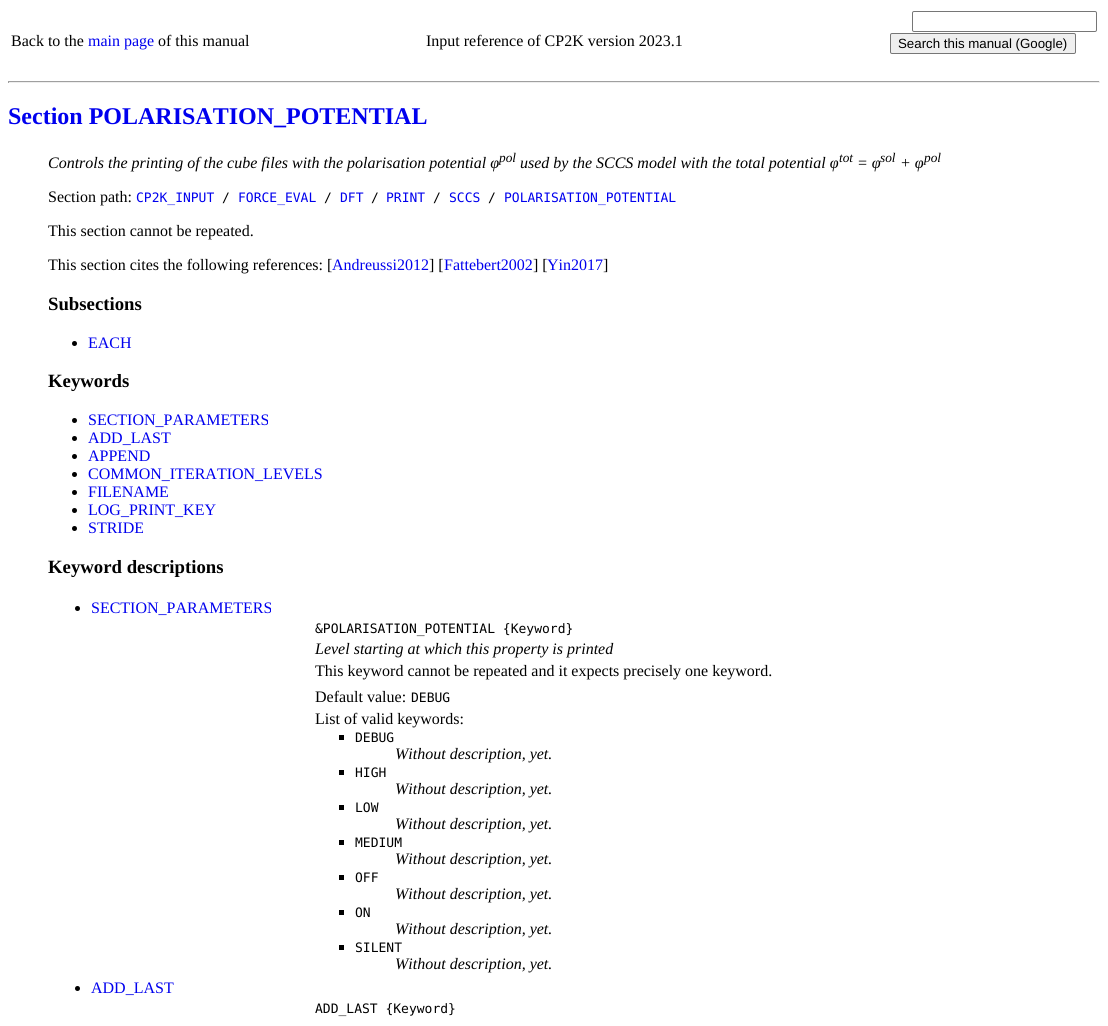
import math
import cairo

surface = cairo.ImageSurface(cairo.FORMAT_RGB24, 1108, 1026)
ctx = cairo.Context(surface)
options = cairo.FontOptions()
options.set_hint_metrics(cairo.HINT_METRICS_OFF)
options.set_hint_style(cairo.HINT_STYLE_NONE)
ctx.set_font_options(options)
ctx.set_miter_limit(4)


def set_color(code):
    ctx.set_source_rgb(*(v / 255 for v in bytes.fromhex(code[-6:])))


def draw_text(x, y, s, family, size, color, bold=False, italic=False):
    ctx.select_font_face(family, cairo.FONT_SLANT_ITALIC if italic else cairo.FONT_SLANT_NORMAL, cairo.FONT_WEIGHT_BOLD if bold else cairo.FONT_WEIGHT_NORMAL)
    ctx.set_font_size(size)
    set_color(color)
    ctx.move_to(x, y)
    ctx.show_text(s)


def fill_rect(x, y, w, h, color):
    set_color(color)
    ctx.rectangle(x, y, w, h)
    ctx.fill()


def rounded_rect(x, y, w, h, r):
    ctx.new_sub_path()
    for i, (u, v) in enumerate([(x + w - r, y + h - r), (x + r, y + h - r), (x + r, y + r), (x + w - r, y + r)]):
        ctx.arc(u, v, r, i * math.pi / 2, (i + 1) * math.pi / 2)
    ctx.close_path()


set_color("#ffffff")
ctx.paint()
draw_text(11, 46, "Back to the", "Liberation Serif", 16, "#000000")
draw_text(88, 46, "main page", "Liberation Serif", 16, "#0000ee")
draw_text(158, 46, "of this manual", "Liberation Serif", 16, "#000000")
draw_text(426, 46, "Input reference of CP2K version 2023.1", "Liberation Serif", 16, "#000000")
rounded_rect(912.5, 11.5, 184, 20, 1.5)
set_color("#767676")
ctx.set_line_width(1)
ctx.stroke()
set_color("#efefef")
rounded_rect(890.5, 33.5, 185, 20, 1.5)
ctx.fill_preserve()
set_color("#767676")
ctx.stroke()
draw_text(898, 48, "Search this manual (Google)", "Liberation Sans", 13.3, "#000000")
fill_rect(8, 81, 1092, 1, "#9f9f9f")
fill_rect(1099, 81, 1, 2, "#eeeeee")
fill_rect(8, 82, 1092, 1, "#eeeeee")
fill_rect(8, 81, 1, 2, "#9f9f9f")
draw_text(8, 124, "Section POLARISATION_POTENTIAL", "Liberation Serif", 24, "#0000ee", bold=True)
draw_text(48, 168, "Controls the printing of the cube files with the polarisation potential φ", "Liberation Serif", 16, "#000000", italic=True)
draw_text(499, 162, "pol", "Liberation Serif", 13.3, "#000000", italic=True)
draw_text(520, 168, "used by the SCCS model with the total potential φ", "Liberation Serif", 16, "#000000", italic=True)
draw_text(839, 162, "tot", "Liberation Serif", 13.3, "#000000", italic=True)
draw_text(857, 168, "= φ", "Liberation Serif", 16, "#000000", italic=True)
draw_text(880, 162, "sol", "Liberation Serif", 13.3, "#000000", italic=True)
draw_text(900, 168, "+ φ", "Liberation Serif", 16, "#000000", italic=True)
draw_text(924, 162, "pol", "Liberation Serif", 13.3, "#000000", italic=True)
draw_text(48, 202, "Section path:", "Liberation Serif", 16, "#000000")
draw_text(136, 202, "CP2K_INPUT", "DejaVu Sans Mono", 13, "#0000ee")
draw_text(222, 202, "/", "DejaVu Sans Mono", 13, "#000000")
draw_text(238, 202, "FORCE_EVAL", "DejaVu Sans Mono", 13, "#0000ee")
draw_text(324, 202, "/", "DejaVu Sans Mono", 13, "#000000")
draw_text(340, 202, "DFT", "DejaVu Sans Mono", 13, "#0000ee")
draw_text(371, 202, "/", "DejaVu Sans Mono", 13, "#000000")
draw_text(386, 202, "PRINT", "DejaVu Sans Mono", 13, "#0000ee")
draw_text(433, 202, "/", "DejaVu Sans Mono", 13, "#000000")
draw_text(449, 202, "SCCS", "DejaVu Sans Mono", 13, "#0000ee")
draw_text(488, 202, "/", "DejaVu Sans Mono", 13, "#000000")
draw_text(504, 202, "POLARISATION_POTENTIAL", "DejaVu Sans Mono", 13, "#0000ee")
draw_text(48, 236, "This section cannot be repeated.", "Liberation Serif", 16, "#000000")
draw_text(48, 270, "This section cites the following references: [", "Liberation Serif", 16, "#000000")
draw_text(332, 270, "Andreussi2012", "Liberation Serif", 16, "#0000ee")
draw_text(429, 270, "] [", "Liberation Serif", 16, "#000000")
draw_text(444, 270, "Fattebert2002", "Liberation Serif", 16, "#0000ee")
draw_text(533, 270, "] [", "Liberation Serif", 16, "#000000")
draw_text(547, 270, "Yin2017", "Liberation Serif", 16, "#0000ee")
draw_text(603, 270, "]", "Liberation Serif", 16, "#000000")
draw_text(48, 310, "Subsections", "Liberation Serif", 18.75, "#000000", bold=True)
ctx.new_path()
ctx.arc(74.5, 343.5, 2.5, 0, 2 * math.pi)
ctx.fill()
draw_text(88, 348, "EACH", "Liberation Serif", 16, "#0000ee")
draw_text(48, 387, "Keywords", "Liberation Serif", 18.75, "#000000", bold=True)
ctx.new_path()
ctx.arc(74.5, 420.5, 2.5, 0, 2 * math.pi)
ctx.fill()
draw_text(88, 425, "SECTION_PARAMETERS", "Liberation Serif", 16, "#0000ee")
set_color("#000000")
ctx.new_path()
ctx.arc(74.5, 438.5, 2.5, 0, 2 * math.pi)
ctx.fill()
draw_text(88, 443, "ADD_LAST", "Liberation Serif", 16, "#0000ee")
set_color("#000000")
ctx.new_path()
ctx.arc(74.5, 456.5, 2.5, 0, 2 * math.pi)
ctx.fill()
draw_text(88, 461, "APPEND", "Liberation Serif", 16, "#0000ee")
set_color("#000000")
ctx.new_path()
ctx.arc(74.5, 474.5, 2.5, 0, 2 * math.pi)
ctx.fill()
draw_text(88, 479, "COMMON_ITERATION_LEVELS", "Liberation Serif", 16, "#0000ee")
set_color("#000000")
ctx.new_path()
ctx.arc(74.5, 492.5, 2.5, 0, 2 * math.pi)
ctx.fill()
draw_text(88, 497, "FILENAME", "Liberation Serif", 16, "#0000ee")
set_color("#000000")
ctx.new_path()
ctx.arc(74.5, 510.5, 2.5, 0, 2 * math.pi)
ctx.fill()
draw_text(88, 515, "LOG_PRINT_KEY", "Liberation Serif", 16, "#0000ee")
set_color("#000000")
ctx.new_path()
ctx.arc(74.5, 528.5, 2.5, 0, 2 * math.pi)
ctx.fill()
draw_text(88, 533, "STRIDE", "Liberation Serif", 16, "#0000ee")
draw_text(48, 573, "Keyword descriptions", "Liberation Serif", 18.75, "#000000", bold=True)
ctx.new_path()
ctx.arc(77.5, 608.5, 2.5, 0, 2 * math.pi)
ctx.fill()
draw_text(91, 613, "SECTION_PARAMETERS", "Liberation Serif", 16, "#0000ee")
draw_text(315, 633, "&POLARISATION_POTENTIAL {Keyword}", "DejaVu Sans Mono", 13, "#000000")
draw_text(315, 654, "Level starting at which this property is printed", "Liberation Serif", 16, "#000000", italic=True)
draw_text(315, 676, "This keyword cannot be repeated and it expects precisely one keyword.", "Liberation Serif", 16, "#000000")
draw_text(315, 702, "Default value:", "Liberation Serif", 16, "#000000")
draw_text(411, 702, "DEBUG", "DejaVu Sans Mono", 13, "#000000")
draw_text(315, 724, "List of valid keywords:", "Liberation Serif", 16, "#000000")
fill_rect(339, 735, 5, 5, "#000000")
draw_text(355, 742, "DEBUG", "DejaVu Sans Mono", 13, "#000000")
draw_text(395, 759, "Without description, yet.", "Liberation Serif", 16, "#000000", italic=True)
fill_rect(339, 770, 5, 5, "#000000")
draw_text(355, 777, "HIGH", "DejaVu Sans Mono", 13, "#000000")
draw_text(395, 794, "Without description, yet.", "Liberation Serif", 16, "#000000", italic=True)
fill_rect(339, 805, 5, 5, "#000000")
draw_text(355, 812, "LOW", "DejaVu Sans Mono", 13, "#000000")
draw_text(395, 829, "Without description, yet.", "Liberation Serif", 16, "#000000", italic=True)
fill_rect(339, 840, 5, 5, "#000000")
draw_text(355, 847, "MEDIUM", "DejaVu Sans Mono", 13, "#000000")
draw_text(395, 864, "Without description, yet.", "Liberation Serif", 16, "#000000", italic=True)
fill_rect(339, 875, 5, 5, "#000000")
draw_text(355, 882, "OFF", "DejaVu Sans Mono", 13, "#000000")
draw_text(395, 899, "Without description, yet.", "Liberation Serif", 16, "#000000", italic=True)
fill_rect(339, 910, 5, 5, "#000000")
draw_text(355, 917, "ON", "DejaVu Sans Mono", 13, "#000000")
draw_text(395, 934, "Without description, yet.", "Liberation Serif", 16, "#000000", italic=True)
fill_rect(339, 945, 5, 5, "#000000")
draw_text(355, 952, "SILENT", "DejaVu Sans Mono", 13, "#000000")
draw_text(395, 969, "Without description, yet.", "Liberation Serif", 16, "#000000", italic=True)
ctx.new_path()
ctx.arc(77.5, 988.5, 2.5, 0, 2 * math.pi)
ctx.fill()
draw_text(91, 993, "ADD_LAST", "Liberation Serif", 16, "#0000ee")
draw_text(315, 1013, "ADD_LAST {Keyword}", "DejaVu Sans Mono", 13, "#000000")
surface.write_to_png("output.png")
